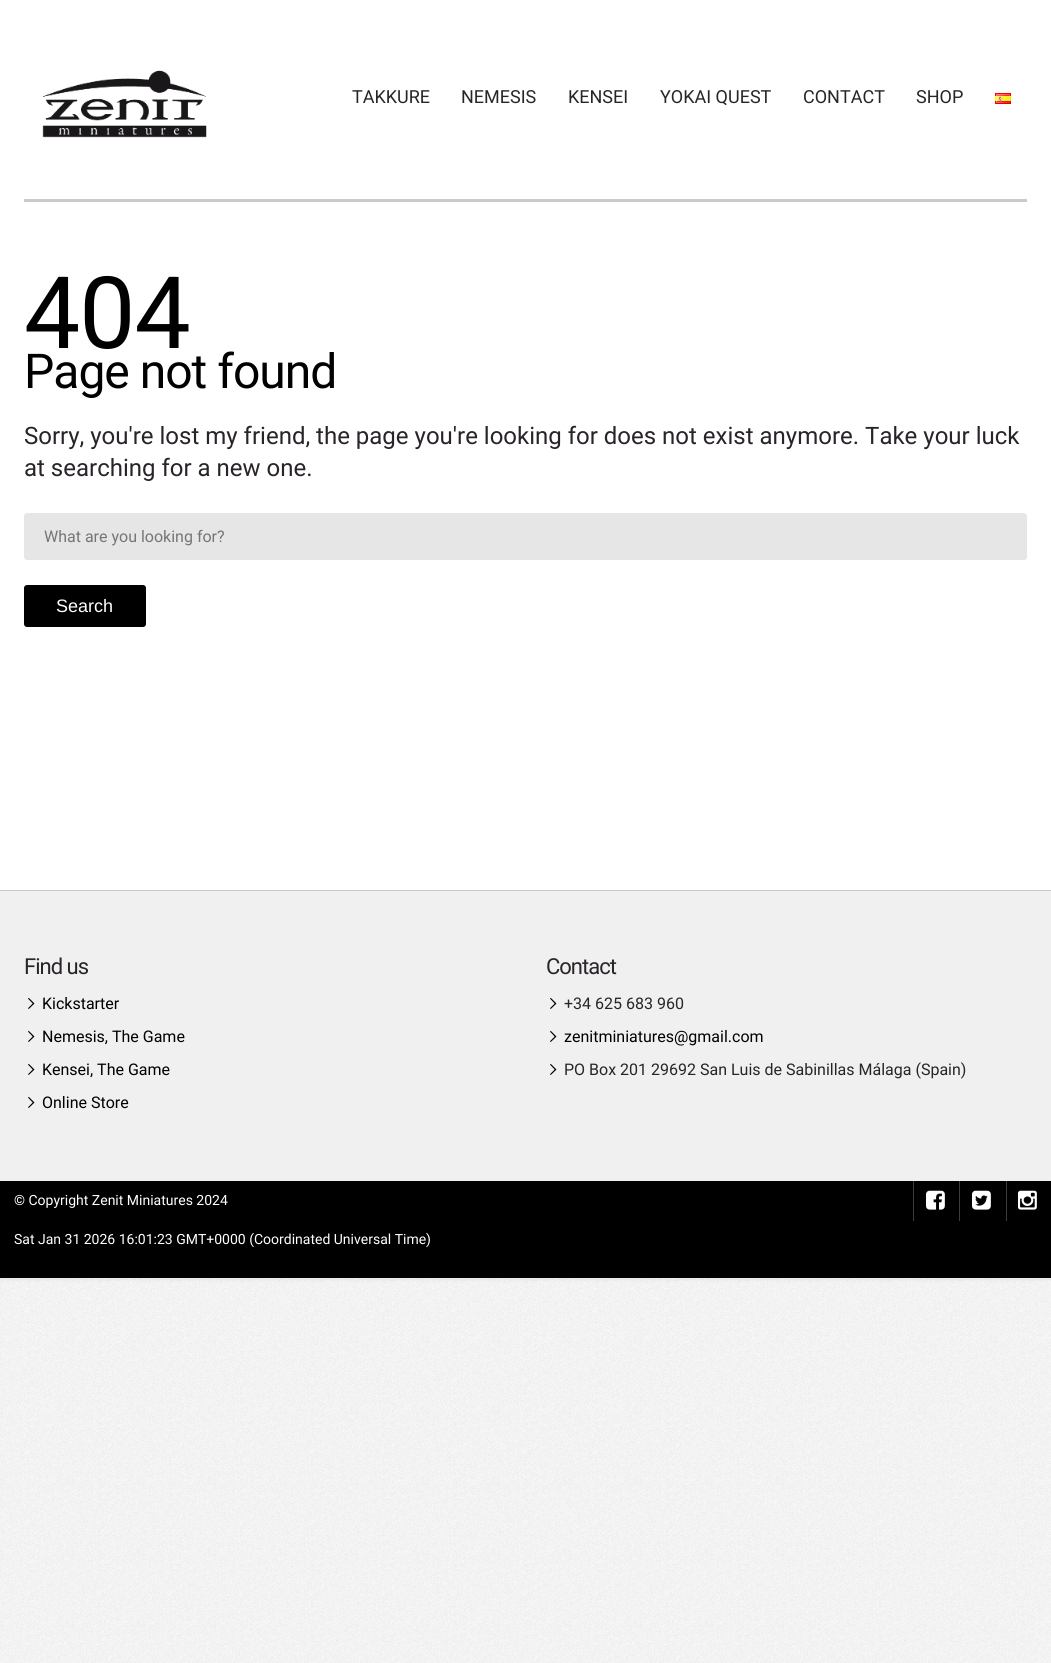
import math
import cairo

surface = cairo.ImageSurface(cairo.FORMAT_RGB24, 1051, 1663)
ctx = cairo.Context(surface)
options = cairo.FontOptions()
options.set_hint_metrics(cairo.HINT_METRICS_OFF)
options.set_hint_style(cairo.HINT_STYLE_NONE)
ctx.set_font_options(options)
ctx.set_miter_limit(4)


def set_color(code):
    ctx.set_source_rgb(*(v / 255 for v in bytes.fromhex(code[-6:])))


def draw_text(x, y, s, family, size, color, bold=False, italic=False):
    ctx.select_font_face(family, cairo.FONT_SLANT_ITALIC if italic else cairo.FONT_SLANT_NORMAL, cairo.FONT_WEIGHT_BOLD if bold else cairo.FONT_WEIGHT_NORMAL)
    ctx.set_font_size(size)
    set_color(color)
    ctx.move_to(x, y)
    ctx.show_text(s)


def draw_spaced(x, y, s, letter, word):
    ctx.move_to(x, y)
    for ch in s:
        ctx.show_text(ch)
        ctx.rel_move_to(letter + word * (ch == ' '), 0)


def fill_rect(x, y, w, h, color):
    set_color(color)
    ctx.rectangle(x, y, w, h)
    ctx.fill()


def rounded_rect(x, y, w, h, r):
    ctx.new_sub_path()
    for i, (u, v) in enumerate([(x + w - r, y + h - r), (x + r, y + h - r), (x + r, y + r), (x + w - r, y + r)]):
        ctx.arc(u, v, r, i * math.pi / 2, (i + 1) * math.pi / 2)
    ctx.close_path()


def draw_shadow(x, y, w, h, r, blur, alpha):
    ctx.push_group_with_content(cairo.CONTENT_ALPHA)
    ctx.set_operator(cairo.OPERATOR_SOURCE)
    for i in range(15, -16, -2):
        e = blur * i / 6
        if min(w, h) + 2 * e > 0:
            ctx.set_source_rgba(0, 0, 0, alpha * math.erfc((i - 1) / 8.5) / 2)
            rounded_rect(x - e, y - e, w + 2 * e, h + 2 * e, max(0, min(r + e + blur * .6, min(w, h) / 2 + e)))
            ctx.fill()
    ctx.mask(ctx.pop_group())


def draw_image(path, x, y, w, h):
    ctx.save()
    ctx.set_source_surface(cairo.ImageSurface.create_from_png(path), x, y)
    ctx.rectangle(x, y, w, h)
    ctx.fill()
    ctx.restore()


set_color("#ffffff")
ctx.paint()
draw_image("assets/img1.png", 0, 1278, 1051, 385)
draw_image("assets/img2.png", 42, 70, 165, 68)
draw_text(352, 103, "TAKKURE", "Roboto", 18, "#292429")
draw_text(461, 103, "NEMESIS", "Roboto", 18, "#292429")
draw_text(568, 103, "KENSEI", "Roboto", 18, "#292429")
draw_text(660, 103, "YOKAI QUEST", "Roboto", 18, "#292429")
draw_text(803, 103, "CONTACT", "Roboto", 18, "#292429")
draw_text(916, 103, "SHOP", "Roboto", 18, "#292429")
draw_image("assets/img3.png", 995, 93, 16, 11)
fill_rect(24, 199, 1003, 3, "#cacaca")
set_color("#000000")
draw_shadow(0, 219, 1051, 1059, 0, 3, 0.1)
fill_rect(0, 215, 1051, 675, "#ffffff")
ctx.set_font_size(100)
set_color("#000000")
draw_spaced(24, 348, "404", -1, 0)
ctx.set_font_size(48)
draw_spaced(24, 388, "Page not found", -1, 0)
draw_text(24, 444, "Sorry, you're lost my friend, the page you're looking for does not exist anymore. Take your luck", "Roboto", 24, "#292429")
draw_text(24, 476, "at searching for a new one.", "Roboto", 24, "#292429")
set_color("#e6e6e6")
rounded_rect(24, 513, 1003, 47, 3)
ctx.fill()
draw_text(44, 542, "What are you looking for?", "Roboto", 16, "#757575")
set_color("#000000")
rounded_rect(24, 585, 122, 42, 3)
ctx.fill()
draw_text(56, 612, "Search", "Liberation Sans", 18, "#ffffff")
fill_rect(1, 891, 1049, 290, "#f0f0f0")
fill_rect(0, 890, 1051, 1, "#cacaca")
ctx.select_font_face("Roboto")
ctx.set_font_size(22)
set_color("#292429")
draw_spaced(24, 974, "Find us", -1, 0)
draw_image("assets/img4.png", 28, 997, 7, 12)
draw_text(42, 1009, "Kickstarter", "Roboto", 16, "#000000")
draw_image("assets/img4.png", 28, 1030, 7, 12)
draw_text(42, 1042, "Nemesis, The Game", "Roboto", 16, "#000000")
draw_image("assets/img4.png", 28, 1063, 7, 12)
draw_text(42, 1075, "Kensei, The Game", "Roboto", 16, "#000000")
draw_image("assets/img4.png", 28, 1096, 7, 12)
draw_text(42, 1108, "Online Store", "Roboto", 16, "#000000")
ctx.set_font_size(22)
set_color("#292429")
draw_spaced(546, 974, "Contact", -1, 0)
draw_image("assets/img4.png", 550, 997, 7, 12)
draw_text(564, 1009, "+34 625 683 960", "Roboto", 16, "#292429")
draw_image("assets/img4.png", 550, 1030, 7, 12)
draw_text(564, 1042, "zenitminiatures@gmail.com", "Roboto", 16, "#000000")
draw_image("assets/img4.png", 550, 1063, 7, 12)
draw_text(564, 1075, "PO Box 201 29692 San Luis de Sabinillas Málaga (Spain)", "Roboto", 16, "#292429")
fill_rect(0, 1181, 1051, 97, "#000000")
draw_text(14, 1205, "© Copyright Zenit Miniatures 2024", "Roboto", 14, "#ffffff")
draw_text(14, 1244, "Sat Jan 31 2026 16:01:23 GMT+0000 (Coordinated Universal Time)", "Roboto", 14, "#ffffff")
fill_rect(913, 1181, 1, 40, "#3d3d3d")
draw_image("assets/img5.png", 926, 1190, 19, 20)
fill_rect(959, 1181, 1, 40, "#3d3d3d")
draw_image("assets/img6.png", 972, 1190, 19, 20)
fill_rect(1006, 1181, 1, 40, "#3d3d3d")
draw_image("assets/img7.png", 1018, 1190, 19, 20)
surface.write_to_png("output.png")
